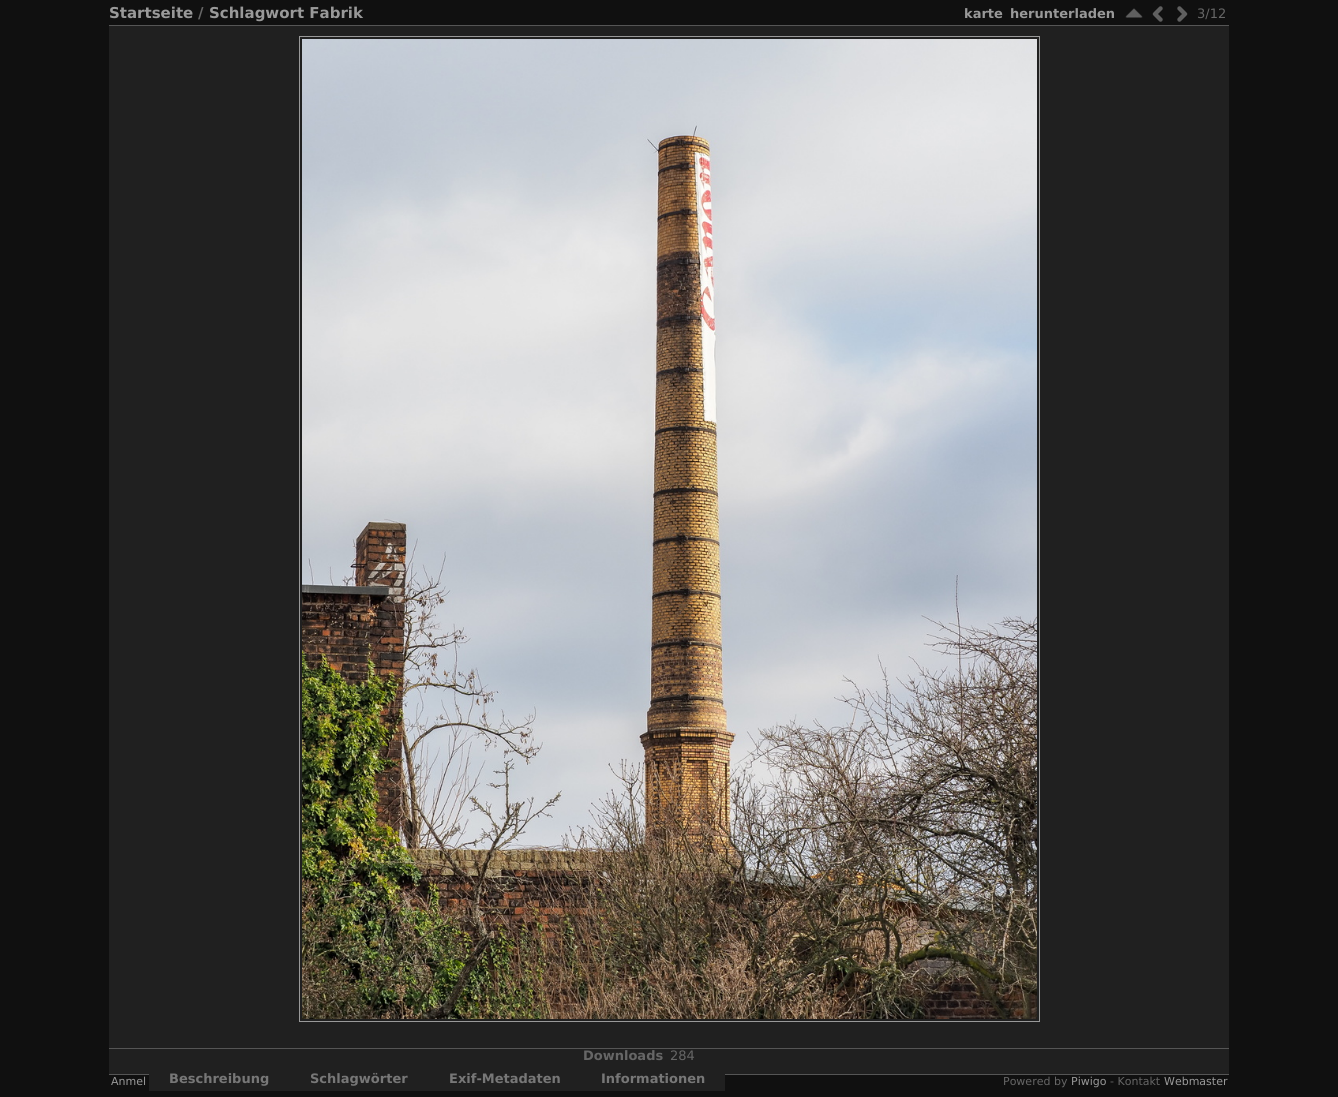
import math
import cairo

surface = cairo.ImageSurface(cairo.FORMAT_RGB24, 1338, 1097)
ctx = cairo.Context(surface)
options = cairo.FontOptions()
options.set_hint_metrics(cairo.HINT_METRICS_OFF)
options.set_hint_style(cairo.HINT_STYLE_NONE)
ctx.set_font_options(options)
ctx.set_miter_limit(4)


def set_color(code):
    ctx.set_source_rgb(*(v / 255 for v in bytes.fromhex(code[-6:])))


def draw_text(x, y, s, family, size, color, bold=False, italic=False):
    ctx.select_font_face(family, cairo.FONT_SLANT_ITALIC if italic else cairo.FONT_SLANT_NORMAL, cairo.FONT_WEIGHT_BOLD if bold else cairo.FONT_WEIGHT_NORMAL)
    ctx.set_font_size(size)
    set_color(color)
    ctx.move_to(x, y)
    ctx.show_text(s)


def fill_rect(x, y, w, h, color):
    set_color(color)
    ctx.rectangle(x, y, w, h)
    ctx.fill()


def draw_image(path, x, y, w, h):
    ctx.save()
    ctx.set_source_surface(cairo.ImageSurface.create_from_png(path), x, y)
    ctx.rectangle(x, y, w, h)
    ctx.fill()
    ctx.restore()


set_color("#101010")
ctx.paint()
draw_text(109, 18, "Startseite", "DejaVu Sans", 15, "#999999", bold=True)
draw_text(198, 18, "/", "DejaVu Sans", 15, "#666666", bold=True)
draw_text(209, 18, "Schlagwort Fabrik", "DejaVu Sans", 15, "#999999", bold=True)
draw_text(964, 18, "karte", "DejaVu Sans", 13, "#999999", bold=True)
draw_text(1010, 18, "herunterladen", "DejaVu Sans", 13, "#999999", bold=True)
draw_image("assets/img1.png", 1125, 8, 18, 10)
draw_image("assets/img2.png", 1152, 6, 11, 16)
draw_image("assets/img3.png", 1177, 6, 11, 16)
draw_text(1197, 18, "3/12", "DejaVu Sans", 13, "#666666")
fill_rect(109, 26, 1120, 1048, "#202020")
fill_rect(109, 25, 1120, 1, "#555555")
fill_rect(109, 1074, 1120, 1, "#555555")
ctx.rectangle(299.5, 36.5, 740, 985)
set_color("#999999")
ctx.set_line_width(1)
ctx.stroke()
draw_image("assets/img4.png", 302, 39, 735, 980)
draw_text(583, 1060, "Downloads", "DejaVu Sans", 13, "#666666", bold=True)
draw_text(670, 1060, "284", "DejaVu Sans", 13, "#666666")
fill_rect(109, 1048, 1120, 1, "#555555")
fill_rect(149, 1074, 576, 17, "#202020")
draw_text(169, 1083, "Beschreibung", "DejaVu Sans", 13, "#777777", bold=True)
draw_text(310, 1083, "Schlagwörter", "DejaVu Sans", 13, "#777777", bold=True)
draw_text(449, 1083, "Exif-Metadaten", "DejaVu Sans", 13, "#777777", bold=True)
draw_text(601, 1083, "Informationen", "DejaVu Sans", 13, "#777777", bold=True)
draw_text(111, 1085, "Anmel", "DejaVu Sans", 11, "#999999")
draw_text(1003, 1085, "Powered by", "DejaVu Sans", 11, "#666666")
draw_text(1071, 1085, "Piwigo", "DejaVu Sans", 11, "#999999")
draw_text(1110, 1085, "- Kontakt", "DejaVu Sans", 11, "#666666")
draw_text(1164, 1085, "Webmaster", "DejaVu Sans", 11, "#999999")
surface.write_to_png("output.png")
